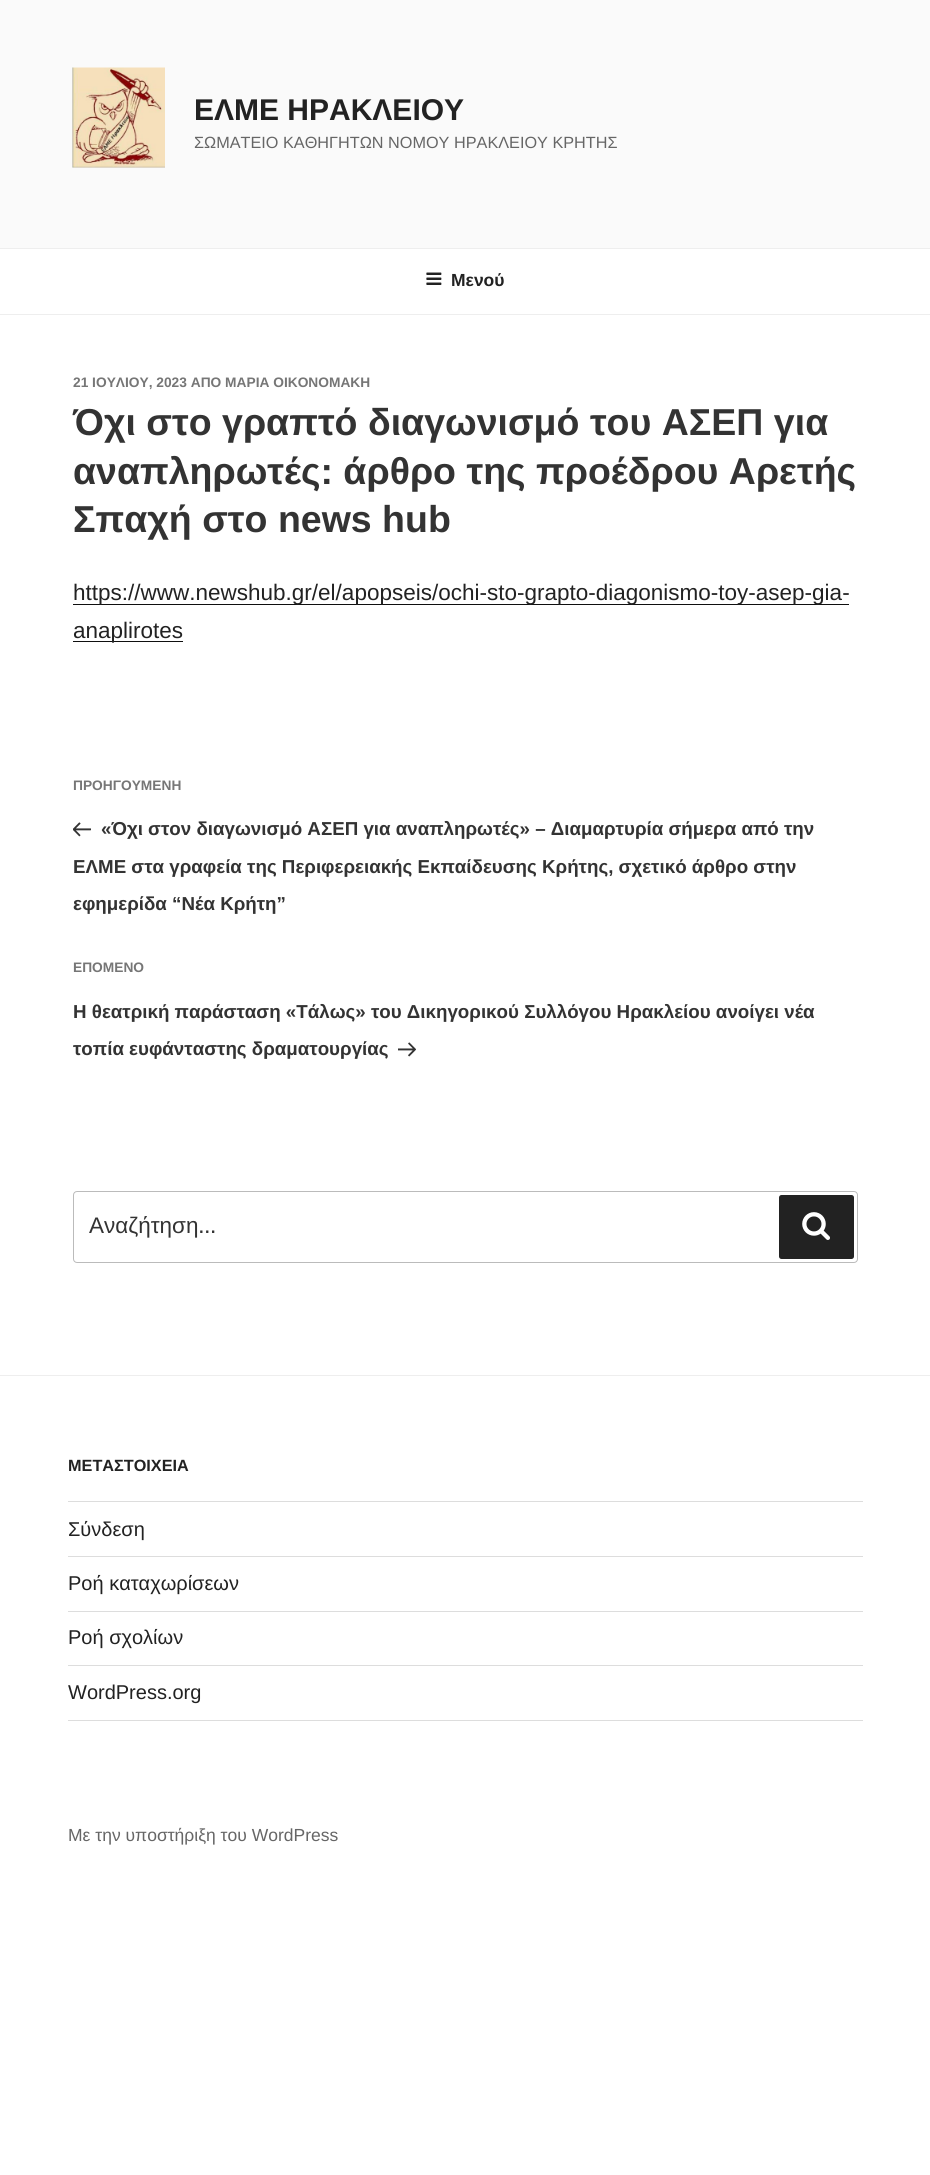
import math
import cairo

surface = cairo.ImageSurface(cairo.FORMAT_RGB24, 930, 2175)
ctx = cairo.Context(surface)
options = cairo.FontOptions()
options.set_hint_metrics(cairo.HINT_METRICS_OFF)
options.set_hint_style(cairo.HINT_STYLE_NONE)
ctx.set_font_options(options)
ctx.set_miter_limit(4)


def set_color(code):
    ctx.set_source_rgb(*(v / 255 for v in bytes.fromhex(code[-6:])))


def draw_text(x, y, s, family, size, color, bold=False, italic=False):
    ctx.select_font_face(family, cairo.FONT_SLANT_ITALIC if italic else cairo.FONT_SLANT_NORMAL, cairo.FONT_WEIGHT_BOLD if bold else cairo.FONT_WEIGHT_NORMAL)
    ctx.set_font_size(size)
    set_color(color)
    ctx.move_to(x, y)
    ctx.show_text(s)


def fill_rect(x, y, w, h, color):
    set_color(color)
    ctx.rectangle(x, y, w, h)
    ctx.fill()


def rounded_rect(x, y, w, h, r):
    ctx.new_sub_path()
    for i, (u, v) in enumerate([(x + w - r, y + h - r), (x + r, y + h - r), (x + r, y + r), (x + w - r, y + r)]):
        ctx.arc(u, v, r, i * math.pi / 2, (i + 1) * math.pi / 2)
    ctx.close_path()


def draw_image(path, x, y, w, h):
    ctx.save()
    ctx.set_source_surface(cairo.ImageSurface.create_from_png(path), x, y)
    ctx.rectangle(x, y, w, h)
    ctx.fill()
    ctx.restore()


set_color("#ffffff")
ctx.paint()
fill_rect(0, 0, 930, 248, "#fafafa")
draw_image("assets/img1.png", 72, 67, 93, 101)
draw_text(194, 120, "ΕΛΜΕ ΗΡΑΚΛΕΙΟΥ", "Liberation Sans", 30, "#222222", bold=True)
draw_text(194, 148, "ΣΩΜΑΤΕΙΟ ΚΑΘΗΓΗΤΩΝ ΝΟΜΟΥ ΗΡΑΚΛΕΙΟΥ ΚΡΗΤΗΣ", "Liberation Sans", 16.25, "#666666")
fill_rect(0, 248, 930, 1, "#eeeeee")
fill_rect(0, 314, 930, 1, "#eeeeee")
draw_image("assets/img2.png", 426, 272, 16, 13)
draw_text(451, 286, "Μενού", "Liberation Sans", 17.5, "#222222", bold=True)
draw_text(73, 387, "21 ΙΟΥΛΙΟΥ, 2023 ΑΠΟ ΜΑΡΙΑ ΟΙΚΟΝΟΜΑΚΗ", "Liberation Sans", 13.75, "#767676", bold=True)
draw_text(73, 435, "Όχι στο γραπτό διαγωνισμό του ΑΣΕΠ για", "Liberation Sans", 37.5, "#333333", bold=True)
draw_text(73, 484, "αναπληρωτές: άρθρο της προέδρου Αρετής", "Liberation Sans", 37.5, "#333333", bold=True)
draw_text(73, 532, "Σπαχή στο news hub", "Liberation Sans", 37.5, "#333333", bold=True)
fill_rect(73, 604, 776, 1, "#0f0f0f")
draw_text(73, 600, "https://www.newshub.gr/el/apopseis/ochi-sto-grapto-diagonismo-toy-asep-gia-", "Liberation Sans", 22.5, "#222222")
fill_rect(73, 641, 110, 1, "#0f0f0f")
draw_text(73, 638, "anaplirotes", "Liberation Sans", 22.5, "#222222")
draw_text(73, 790, "ΠΡΟΗΓΟΥΜΕΝΗ", "Liberation Sans", 13.75, "#767676", bold=True)
draw_image("assets/img3.png", 73, 822, 18, 15)
draw_text(101, 835, "«Όχι στον διαγωνισμό ΑΣΕΠ για αναπληρωτές» – Διαμαρτυρία σήμερα από την", "Liberation Sans", 18.75, "#333333", bold=True)
draw_text(73, 873, "ΕΛΜΕ στα γραφεία της Περιφερειακής Εκπαίδευσης Κρήτης, σχετικό άρθρο στην", "Liberation Sans", 18.75, "#333333", bold=True)
draw_text(73, 910, "εφημερίδα “Νέα Κρήτη”", "Liberation Sans", 18.75, "#333333", bold=True)
draw_text(73, 972, "ΕΠΟΜΕΝΟ", "Liberation Sans", 13.75, "#767676", bold=True)
draw_text(73, 1018, "Η θεατρική παράσταση «Τάλως» του Δικηγορικού Συλλόγου Ηρακλείου ανοίγει νέα", "Liberation Sans", 18.75, "#333333", bold=True)
draw_text(73, 1055, "τοπία ευφάνταστης δραματουργίας", "Liberation Sans", 18.75, "#333333", bold=True)
draw_image("assets/img4.png", 398, 1042, 18, 15)
rounded_rect(73.5, 1191.5, 784, 71, 3.5)
set_color("#bbbbbb")
ctx.set_line_width(1)
ctx.stroke()
draw_text(89, 1233, "Αναζήτηση", "Liberation Sans", 22.5, "#333333")
draw_text(199, 1233, "…", "Libre Franklin", 22.5, "#333333")
set_color("#222222")
rounded_rect(779, 1195, 75, 64, 2.5)
ctx.fill()
draw_image("assets/img5.png", 802, 1212, 28, 28)
fill_rect(0, 1375, 930, 1, "#eeeeee")
draw_text(68, 1471, "ΜΕΤΑΣΤΟΙΧΕΙΑ", "Liberation Sans", 16.25, "#222222", bold=True)
fill_rect(68, 1501, 795, 1, "#dddddd")
fill_rect(68, 1556, 795, 1, "#dddddd")
draw_text(68, 1536, "Σύνδεση", "Liberation Sans", 20, "#222222")
fill_rect(68, 1611, 795, 1, "#dddddd")
draw_text(68, 1590, "Ροή καταχωρίσεων", "Liberation Sans", 20, "#222222")
fill_rect(68, 1665, 795, 1, "#dddddd")
draw_text(68, 1644, "Ροή σχολίων", "Liberation Sans", 20, "#222222")
fill_rect(68, 1720, 795, 1, "#dddddd")
draw_text(68, 1699, "WordPress.org", "Liberation Sans", 20, "#222222")
draw_text(68, 1841, "Με την υποστήριξη του WordPress", "Liberation Sans", 17.5, "#666666")
surface.write_to_png("output.png")
